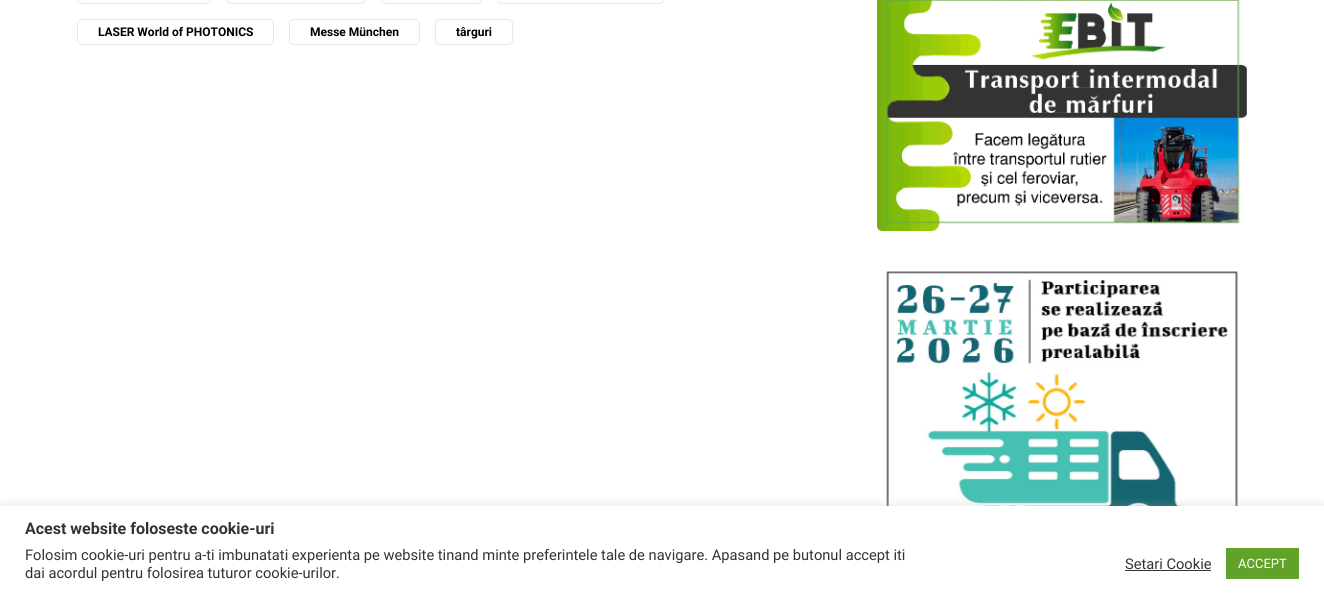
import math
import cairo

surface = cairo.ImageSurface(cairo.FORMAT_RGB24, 1324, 598)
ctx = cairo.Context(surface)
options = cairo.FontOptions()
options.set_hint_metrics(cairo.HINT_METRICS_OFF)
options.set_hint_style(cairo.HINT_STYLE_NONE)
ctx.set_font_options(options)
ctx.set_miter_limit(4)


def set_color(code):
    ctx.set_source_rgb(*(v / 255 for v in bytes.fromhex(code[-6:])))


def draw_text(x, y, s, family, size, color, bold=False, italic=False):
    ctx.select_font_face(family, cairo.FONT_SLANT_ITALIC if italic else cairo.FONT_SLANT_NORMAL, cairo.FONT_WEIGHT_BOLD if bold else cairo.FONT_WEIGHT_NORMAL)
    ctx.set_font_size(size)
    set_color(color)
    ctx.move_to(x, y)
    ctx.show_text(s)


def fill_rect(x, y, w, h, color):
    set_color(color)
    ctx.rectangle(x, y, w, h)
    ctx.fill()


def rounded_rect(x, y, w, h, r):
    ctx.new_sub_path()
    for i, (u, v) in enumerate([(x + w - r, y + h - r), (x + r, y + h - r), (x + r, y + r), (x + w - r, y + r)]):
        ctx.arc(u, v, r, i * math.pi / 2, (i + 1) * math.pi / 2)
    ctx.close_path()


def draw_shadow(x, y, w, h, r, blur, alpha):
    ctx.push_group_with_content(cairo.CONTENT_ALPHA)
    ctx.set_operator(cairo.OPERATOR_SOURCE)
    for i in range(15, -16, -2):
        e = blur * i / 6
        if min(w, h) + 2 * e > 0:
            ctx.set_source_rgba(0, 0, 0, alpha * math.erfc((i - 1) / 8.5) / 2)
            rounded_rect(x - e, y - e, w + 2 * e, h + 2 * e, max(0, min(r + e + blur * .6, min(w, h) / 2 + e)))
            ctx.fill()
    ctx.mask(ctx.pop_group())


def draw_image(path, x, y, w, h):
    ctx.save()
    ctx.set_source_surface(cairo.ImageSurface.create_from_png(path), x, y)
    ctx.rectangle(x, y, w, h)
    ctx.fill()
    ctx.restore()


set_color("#ffffff")
ctx.paint()
rounded_rect(77.5, -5.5, 133, 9, 4.5)
set_color("#e9e9e9")
ctx.set_line_width(1)
ctx.stroke()
rounded_rect(226.5, -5.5, 139, 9, 4.5)
ctx.stroke()
rounded_rect(381.5, -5.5, 100, 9, 4.5)
ctx.stroke()
rounded_rect(497.5, -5.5, 166, 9, 4.5)
ctx.stroke()
rounded_rect(77.5, 19.5, 196, 25, 4.5)
ctx.stroke()
draw_text(98, 36, "LASER World of PHOTONICS", "Roboto", 12, "#000000", bold=True)
rounded_rect(289.5, 19.5, 130, 25, 4.5)
set_color("#e9e9e9")
ctx.stroke()
draw_text(310, 36, "Messe München", "Roboto", 12, "#000000", bold=True)
rounded_rect(435.5, 19.5, 77, 25, 4.5)
set_color("#e9e9e9")
ctx.stroke()
draw_text(456, 36, "târguri", "Roboto", 12, "#000000", bold=True)
draw_image("assets/img1.png", 877, 0, 370, 231)
draw_image("assets/img2.png", 886, 271, 352, 235)
set_color("#acabab")
draw_shadow(0, 505, 1324, 92, 0, 5, 0.3)
fill_rect(0, 506, 1324, 92, "#ffffff")
draw_text(25, 534, "Acest website foloseste cookie-uri", "Roboto", 16, "#333333", bold=True)
draw_text(25, 560, "Folosim cookie-uri pentru a-ti imbunatati experienta pe website tinand minte preferintele tale de navigare. Apasand pe butonul accept iti", "Roboto", 14.67, "#333333")
draw_text(25, 578, "dai acordul pentru folosirea tuturor cookie-urilor.", "Roboto", 14.67, "#333333")
draw_text(1125, 569, "Setari Cookie", "Roboto", 14.67, "#333333")
fill_rect(1125, 570, 86, 1, "#333333")
fill_rect(1226, 548, 73, 31, "#61a229")
draw_text(1238, 568, "ACCEPT", "Roboto", 13, "#ffffff")
surface.write_to_png("output.png")
